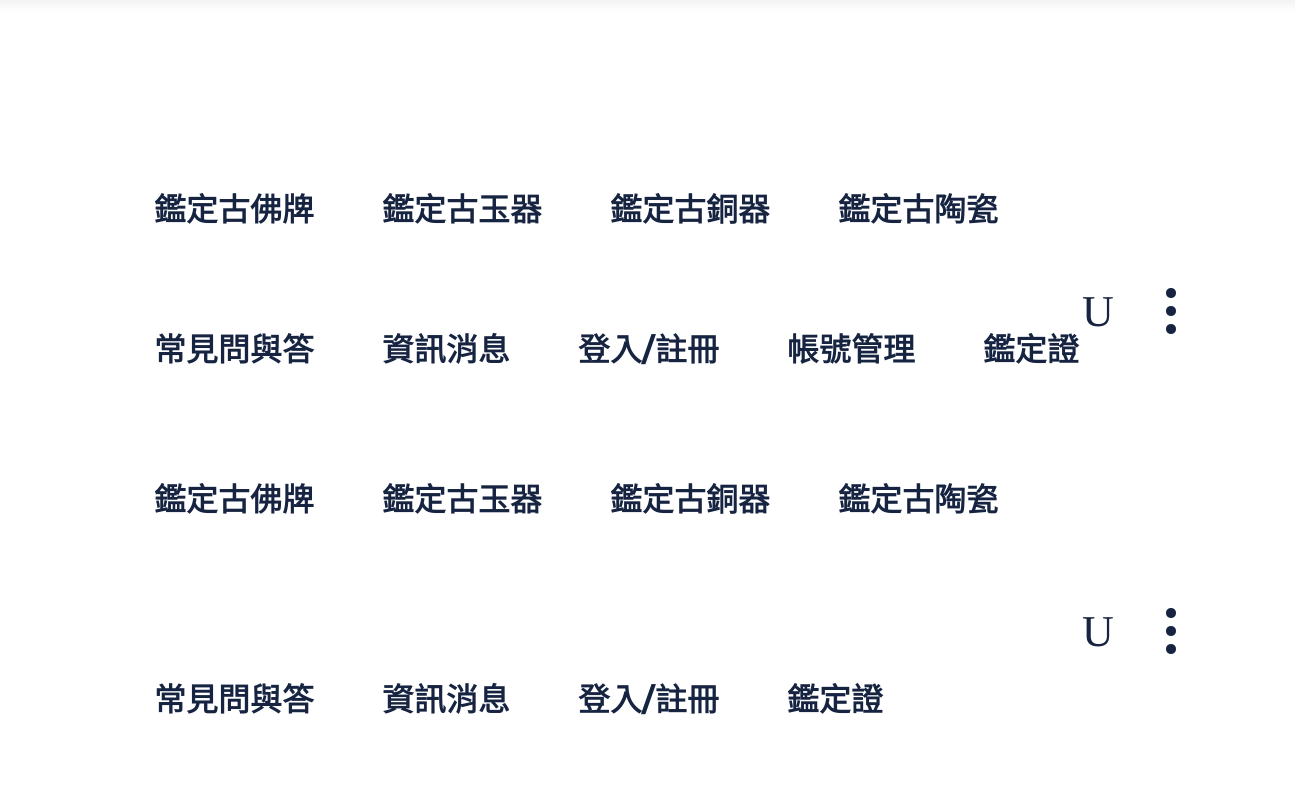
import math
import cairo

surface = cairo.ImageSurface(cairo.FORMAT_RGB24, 1295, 806)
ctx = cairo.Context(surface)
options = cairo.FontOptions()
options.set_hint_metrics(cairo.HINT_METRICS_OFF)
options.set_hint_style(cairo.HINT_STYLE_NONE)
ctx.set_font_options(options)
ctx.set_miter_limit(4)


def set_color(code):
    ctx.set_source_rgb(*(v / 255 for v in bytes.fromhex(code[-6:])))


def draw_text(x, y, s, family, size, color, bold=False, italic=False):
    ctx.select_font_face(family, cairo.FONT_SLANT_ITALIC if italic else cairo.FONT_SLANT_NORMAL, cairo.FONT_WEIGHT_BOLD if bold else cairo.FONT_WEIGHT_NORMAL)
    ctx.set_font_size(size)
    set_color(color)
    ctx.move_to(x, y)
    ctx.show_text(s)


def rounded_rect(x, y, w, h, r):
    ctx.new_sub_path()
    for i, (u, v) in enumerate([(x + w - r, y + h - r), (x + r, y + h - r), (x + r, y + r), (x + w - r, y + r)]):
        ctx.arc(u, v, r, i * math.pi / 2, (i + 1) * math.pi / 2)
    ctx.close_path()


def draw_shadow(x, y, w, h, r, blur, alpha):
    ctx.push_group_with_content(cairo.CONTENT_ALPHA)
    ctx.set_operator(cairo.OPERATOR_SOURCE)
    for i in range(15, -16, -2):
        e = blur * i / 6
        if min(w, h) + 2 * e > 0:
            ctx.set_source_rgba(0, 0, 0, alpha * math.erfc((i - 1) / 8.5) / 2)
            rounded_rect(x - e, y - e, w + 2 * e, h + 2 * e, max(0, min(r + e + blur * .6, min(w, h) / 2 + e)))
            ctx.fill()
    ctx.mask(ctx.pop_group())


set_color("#ffffff")
ctx.paint()
set_color("#000000")
draw_shadow(-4, -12, 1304, 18, 0, 4, 0.05)
draw_text(154, 221, "鑑定古佛牌", "Noto Sans CJK TC", 32, "#162441", bold=True)
draw_text(382, 221, "鑑定古玉器", "Noto Sans CJK TC", 32, "#162441", bold=True)
draw_text(610, 221, "鑑定古銅器", "Noto Sans CJK TC", 32, "#162441", bold=True)
draw_text(838, 221, "鑑定古陶瓷", "Noto Sans CJK TC", 32, "#162441", bold=True)
draw_text(154, 361, "常見問與答", "Noto Sans CJK TC", 32, "#162441", bold=True)
draw_text(382, 361, "資訊消息", "Noto Sans CJK TC", 32, "#162441", bold=True)
draw_text(578, 361, "登入", "Noto Sans CJK TC", 32, "#162441", bold=True)
draw_text(642, 361, "/", "Montserrat", 32, "#162441", bold=True)
draw_text(655, 361, "註冊", "Noto Sans CJK TC", 32, "#162441", bold=True)
draw_text(787, 361, "帳號管理", "Noto Sans CJK TC", 32, "#162441", bold=True)
draw_text(983, 361, "鑑定證", "Noto Sans CJK TC", 32, "#162441", bold=True)
draw_text(1082, 326, "U", "Liberation Serif", 44, "#162441")
ctx.new_path()
ctx.arc(1171, 293, 5, 0, 2 * math.pi)
ctx.fill()
ctx.arc(1171, 311, 5, 0, 2 * math.pi)
ctx.fill()
ctx.arc(1171, 329, 5, 0, 2 * math.pi)
ctx.fill()
draw_text(154, 511, "鑑定古佛牌", "Noto Sans CJK TC", 32, "#162441", bold=True)
draw_text(382, 511, "鑑定古玉器", "Noto Sans CJK TC", 32, "#162441", bold=True)
draw_text(610, 511, "鑑定古銅器", "Noto Sans CJK TC", 32, "#162441", bold=True)
draw_text(838, 511, "鑑定古陶瓷", "Noto Sans CJK TC", 32, "#162441", bold=True)
draw_text(154, 711, "常見問與答", "Noto Sans CJK TC", 32, "#162441", bold=True)
draw_text(382, 711, "資訊消息", "Noto Sans CJK TC", 32, "#162441", bold=True)
draw_text(578, 711, "登入", "Noto Sans CJK TC", 32, "#162441", bold=True)
draw_text(642, 711, "/", "Montserrat", 32, "#162441", bold=True)
draw_text(655, 711, "註冊", "Noto Sans CJK TC", 32, "#162441", bold=True)
draw_text(787, 711, "鑑定證", "Noto Sans CJK TC", 32, "#162441", bold=True)
draw_text(1082, 646, "U", "Liberation Serif", 44, "#162441")
ctx.new_path()
ctx.arc(1171, 613, 5, 0, 2 * math.pi)
ctx.fill()
ctx.arc(1171, 631, 5, 0, 2 * math.pi)
ctx.fill()
ctx.arc(1171, 649, 5, 0, 2 * math.pi)
ctx.fill()
surface.write_to_png("output.png")
